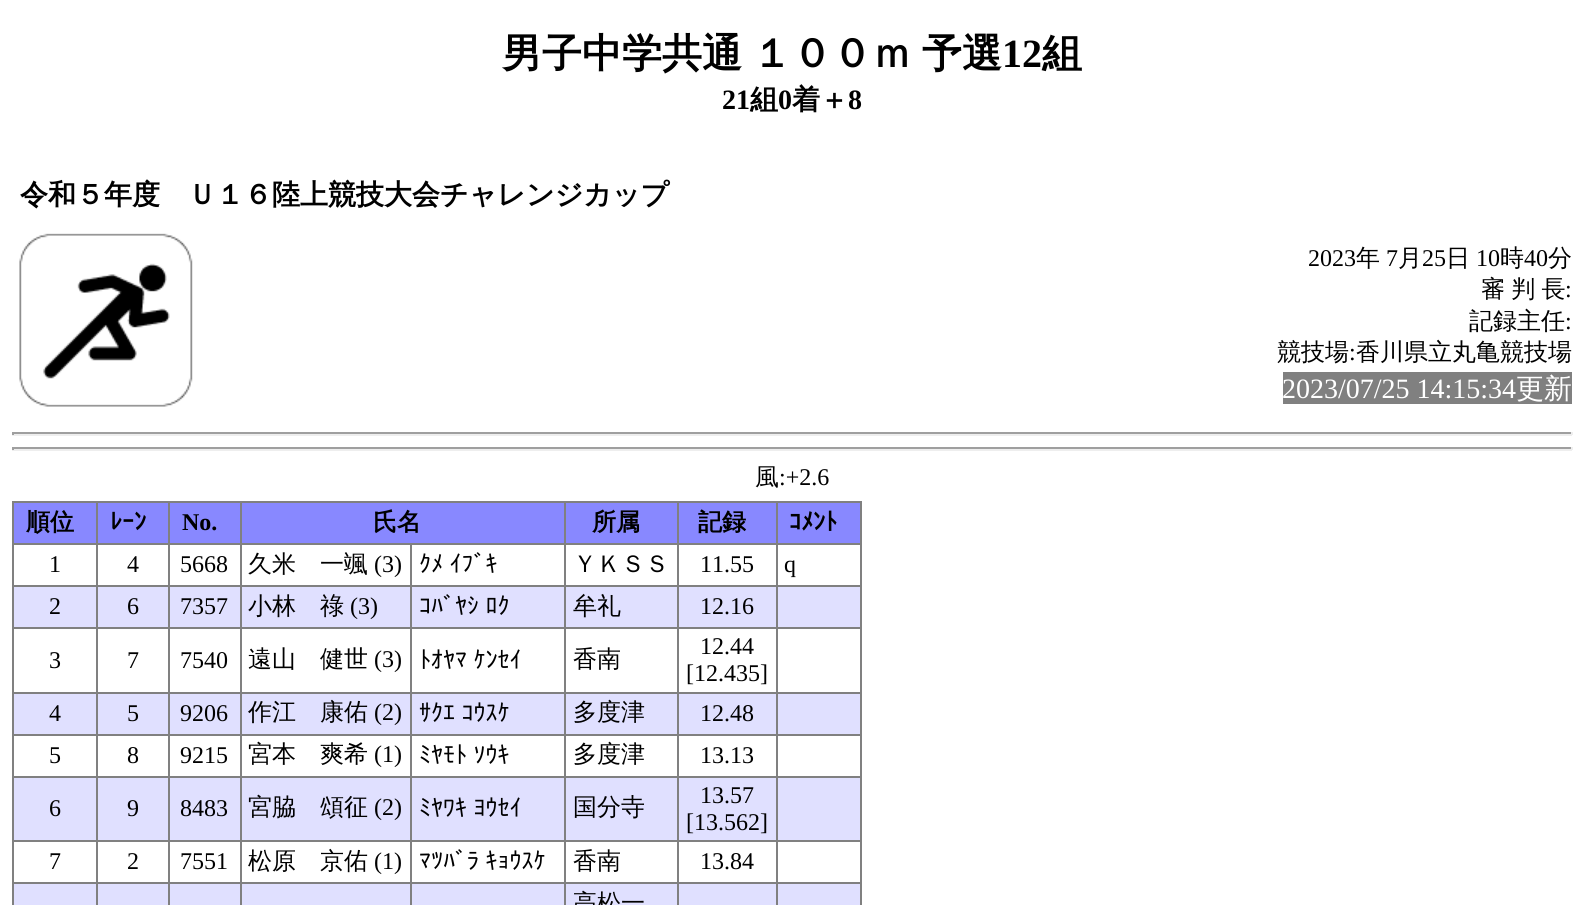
import math
import cairo

surface = cairo.ImageSurface(cairo.FORMAT_RGB24, 1583, 905)
ctx = cairo.Context(surface)
options = cairo.FontOptions()
options.set_hint_metrics(cairo.HINT_METRICS_OFF)
options.set_hint_style(cairo.HINT_STYLE_NONE)
ctx.set_font_options(options)
ctx.set_miter_limit(4)


def set_color(code):
    ctx.set_source_rgb(*(v / 255 for v in bytes.fromhex(code[-6:])))


def draw_text(x, y, s, family, size, color, bold=False, italic=False):
    ctx.select_font_face(family, cairo.FONT_SLANT_ITALIC if italic else cairo.FONT_SLANT_NORMAL, cairo.FONT_WEIGHT_BOLD if bold else cairo.FONT_WEIGHT_NORMAL)
    ctx.set_font_size(size)
    set_color(color)
    ctx.move_to(x, y)
    ctx.show_text(s)


def draw_spaced(x, y, s, letter, word):
    ctx.move_to(x, y)
    for ch in s:
        ctx.show_text(ch)
        ctx.rel_move_to(letter + word * (ch == ' '), 0)


def fill_rect(x, y, w, h, color):
    set_color(color)
    ctx.rectangle(x, y, w, h)
    ctx.fill()


def draw_image(path, x, y, w, h):
    ctx.save()
    ctx.set_source_surface(cairo.ImageSurface.create_from_png(path), x, y)
    ctx.rectangle(x, y, w, h)
    ctx.fill()
    ctx.restore()


set_color("#ffffff")
ctx.paint()
ctx.select_font_face("WenQuanYi Zen Hei", cairo.FONT_SLANT_NORMAL, cairo.FONT_WEIGHT_BOLD)
ctx.set_font_size(40)
set_color("#000000")
draw_spaced(502, 67, "男子中学共通 １００ｍ 予選", 0, -2)
draw_text(1002, 67, "12", "Liberation Serif", 40, "#000000", bold=True)
draw_text(1042, 67, "組", "WenQuanYi Zen Hei", 40, "#000000", bold=True)
draw_text(722, 109, "21", "Liberation Serif", 28, "#000000", bold=True)
draw_text(750, 109, "組", "WenQuanYi Zen Hei", 28, "#000000", bold=True)
draw_text(778, 109, "0", "Liberation Serif", 28, "#000000", bold=True)
draw_text(792, 109, "着＋", "WenQuanYi Zen Hei", 28, "#000000", bold=True)
draw_text(848, 109, "8", "Liberation Serif", 28, "#000000", bold=True)
draw_text(20, 204, "令和５年度　Ｕ１６陸上競技大会チャレンジカップ", "WenQuanYi Zen Hei", 28, "#000000", bold=True)
draw_image("assets/img1.png", 19, 233, 174, 174)
draw_text(1308, 266, "2023", "Liberation Serif", 24, "#000000")
draw_text(1356, 266, "年", "WenQuanYi Zen Hei Medium", 24, "#000000")
draw_text(1386, 266, "7", "Liberation Serif", 24, "#000000")
draw_text(1398, 266, "月", "WenQuanYi Zen Hei Medium", 24, "#000000")
draw_text(1422, 266, "25", "Liberation Serif", 24, "#000000")
draw_text(1446, 266, "日", "WenQuanYi Zen Hei Medium", 24, "#000000")
draw_text(1476, 266, "10", "Liberation Serif", 24, "#000000")
draw_text(1500, 266, "時", "WenQuanYi Zen Hei Medium", 24, "#000000")
draw_text(1524, 266, "40", "Liberation Serif", 24, "#000000")
draw_text(1548, 266, "分", "WenQuanYi Zen Hei Medium", 24, "#000000")
draw_spaced(1481, 297, "審 判 長", 0, -1)
draw_text(1565, 297, ":", "Liberation Serif", 24, "#000000")
draw_text(1469, 329, "記録主任", "WenQuanYi Zen Hei Medium", 24, "#000000")
draw_text(1565, 329, ":", "Liberation Serif", 24, "#000000")
draw_text(1277, 360, "競技場", "WenQuanYi Zen Hei Medium", 24, "#000000")
draw_text(1349, 360, ":", "Liberation Serif", 24, "#000000")
draw_text(1356, 360, "香川県立丸亀競技場", "WenQuanYi Zen Hei Medium", 24, "#000000")
fill_rect(1283, 372, 289, 32, "#808080")
draw_text(1282, 398, "2023/07/25 14:15:34", "Liberation Serif", 28, "#ffffff")
draw_text(1516, 398, "更新", "WenQuanYi Zen Hei Medium", 28, "#ffffff")
fill_rect(12, 432, 1560, 2, "#9f9f9f")
fill_rect(1571, 432, 2, 3, "#eeeeee")
fill_rect(12, 434, 1560, 2, "#eeeeee")
fill_rect(12, 432, 2, 3, "#9f9f9f")
fill_rect(12, 447, 1560, 2, "#9f9f9f")
fill_rect(1571, 447, 2, 3, "#eeeeee")
fill_rect(12, 449, 1560, 2, "#eeeeee")
fill_rect(12, 447, 2, 3, "#9f9f9f")
draw_text(755, 485, "風", "WenQuanYi Zen Hei Medium", 24, "#000000")
draw_text(779, 485, ":+2.6", "Liberation Serif", 24, "#000000")
fill_rect(12, 501, 849, 2, "#808080")
fill_rect(12, 501, 2, 404, "#808080")
fill_rect(14, 503, 82, 40, "#8888ff")
fill_rect(14, 587, 846, 40, "#e0e0ff")
fill_rect(14, 694, 846, 40, "#e0e0ff")
fill_rect(14, 778, 846, 62, "#e0e0ff")
fill_rect(14, 884, 846, 21, "#e0e0ff")
fill_rect(776, 882, 2, 23, "#808080")
fill_rect(860, 501, 2, 404, "#808080")
fill_rect(776, 882, 85, 2, "#808080")
fill_rect(776, 840, 2, 44, "#808080")
fill_rect(776, 840, 85, 2, "#808080")
fill_rect(776, 776, 2, 66, "#808080")
fill_rect(776, 776, 85, 2, "#808080")
fill_rect(776, 734, 2, 43, "#808080")
fill_rect(776, 734, 85, 2, "#808080")
fill_rect(776, 692, 2, 43, "#808080")
fill_rect(776, 692, 85, 2, "#808080")
fill_rect(776, 627, 2, 66, "#808080")
fill_rect(776, 627, 85, 2, "#808080")
fill_rect(776, 585, 2, 44, "#808080")
fill_rect(776, 585, 85, 2, "#808080")
fill_rect(776, 543, 2, 44, "#808080")
fill_rect(776, 543, 85, 2, "#808080")
fill_rect(776, 501, 2, 44, "#808080")
fill_rect(677, 882, 2, 23, "#808080")
fill_rect(677, 882, 100, 2, "#808080")
fill_rect(677, 840, 2, 44, "#808080")
fill_rect(677, 840, 100, 2, "#808080")
fill_rect(677, 776, 2, 66, "#808080")
fill_rect(677, 776, 100, 2, "#808080")
fill_rect(677, 734, 2, 43, "#808080")
fill_rect(677, 734, 100, 2, "#808080")
fill_rect(677, 692, 2, 43, "#808080")
fill_rect(677, 692, 100, 2, "#808080")
fill_rect(677, 627, 2, 66, "#808080")
fill_rect(677, 627, 100, 2, "#808080")
fill_rect(677, 585, 2, 44, "#808080")
fill_rect(677, 585, 100, 2, "#808080")
fill_rect(677, 543, 2, 44, "#808080")
fill_rect(677, 543, 100, 2, "#808080")
fill_rect(677, 501, 2, 44, "#808080")
fill_rect(564, 882, 2, 23, "#808080")
fill_rect(564, 882, 114, 2, "#808080")
fill_rect(564, 840, 2, 44, "#808080")
fill_rect(564, 840, 114, 2, "#808080")
fill_rect(564, 776, 2, 66, "#808080")
fill_rect(564, 776, 114, 2, "#808080")
fill_rect(564, 734, 2, 43, "#808080")
fill_rect(564, 734, 114, 2, "#808080")
fill_rect(564, 692, 2, 43, "#808080")
fill_rect(564, 692, 114, 2, "#808080")
fill_rect(564, 627, 2, 66, "#808080")
fill_rect(564, 627, 114, 2, "#808080")
fill_rect(564, 585, 2, 44, "#808080")
fill_rect(564, 585, 114, 2, "#808080")
fill_rect(564, 543, 2, 44, "#808080")
fill_rect(564, 543, 114, 2, "#808080")
fill_rect(564, 501, 2, 44, "#808080")
fill_rect(410, 882, 2, 23, "#808080")
fill_rect(410, 882, 156, 2, "#808080")
fill_rect(410, 840, 2, 44, "#808080")
fill_rect(410, 840, 156, 2, "#808080")
fill_rect(410, 776, 2, 66, "#808080")
fill_rect(410, 776, 156, 2, "#808080")
fill_rect(410, 734, 2, 43, "#808080")
fill_rect(410, 734, 156, 2, "#808080")
fill_rect(410, 692, 2, 43, "#808080")
fill_rect(410, 692, 156, 2, "#808080")
fill_rect(410, 627, 2, 66, "#808080")
fill_rect(410, 627, 156, 2, "#808080")
fill_rect(410, 585, 2, 44, "#808080")
fill_rect(410, 585, 156, 2, "#808080")
fill_rect(410, 543, 2, 44, "#808080")
fill_rect(240, 882, 2, 23, "#808080")
fill_rect(240, 882, 171, 2, "#808080")
fill_rect(240, 840, 2, 44, "#808080")
fill_rect(240, 840, 171, 2, "#808080")
fill_rect(240, 776, 2, 66, "#808080")
fill_rect(240, 776, 171, 2, "#808080")
fill_rect(240, 734, 2, 43, "#808080")
fill_rect(240, 734, 171, 2, "#808080")
fill_rect(240, 692, 2, 43, "#808080")
fill_rect(240, 692, 171, 2, "#808080")
fill_rect(240, 627, 2, 66, "#808080")
fill_rect(240, 627, 171, 2, "#808080")
fill_rect(240, 585, 2, 44, "#808080")
fill_rect(240, 585, 171, 2, "#808080")
fill_rect(240, 543, 2, 44, "#808080")
fill_rect(240, 543, 326, 2, "#808080")
fill_rect(240, 501, 2, 44, "#808080")
fill_rect(168, 882, 2, 23, "#808080")
fill_rect(168, 882, 74, 2, "#808080")
fill_rect(168, 840, 2, 44, "#808080")
fill_rect(168, 840, 74, 2, "#808080")
fill_rect(168, 776, 2, 66, "#808080")
fill_rect(168, 776, 74, 2, "#808080")
fill_rect(168, 734, 2, 43, "#808080")
fill_rect(168, 734, 74, 2, "#808080")
fill_rect(168, 692, 2, 43, "#808080")
fill_rect(168, 692, 74, 2, "#808080")
fill_rect(168, 627, 2, 66, "#808080")
fill_rect(168, 627, 74, 2, "#808080")
fill_rect(168, 585, 2, 44, "#808080")
fill_rect(168, 585, 74, 2, "#808080")
fill_rect(168, 543, 2, 44, "#808080")
fill_rect(168, 543, 74, 2, "#808080")
fill_rect(168, 501, 2, 44, "#808080")
fill_rect(96, 882, 2, 23, "#808080")
fill_rect(96, 882, 74, 2, "#808080")
fill_rect(96, 840, 2, 44, "#808080")
fill_rect(96, 840, 74, 2, "#808080")
fill_rect(96, 776, 2, 66, "#808080")
fill_rect(96, 776, 74, 2, "#808080")
fill_rect(96, 734, 2, 43, "#808080")
fill_rect(96, 734, 74, 2, "#808080")
fill_rect(96, 692, 2, 43, "#808080")
fill_rect(96, 692, 74, 2, "#808080")
fill_rect(96, 627, 2, 66, "#808080")
fill_rect(96, 627, 74, 2, "#808080")
fill_rect(96, 585, 2, 44, "#808080")
fill_rect(96, 585, 74, 2, "#808080")
fill_rect(96, 543, 2, 44, "#808080")
fill_rect(96, 543, 74, 2, "#808080")
fill_rect(96, 501, 2, 44, "#808080")
fill_rect(12, 543, 86, 2, "#808080")
draw_text(26, 530, "順位", "WenQuanYi Zen Hei", 24, "#000000", bold=True)
fill_rect(98, 503, 70, 40, "#8888ff")
draw_text(110, 530, "ﾚｰﾝ", "IPAPGothic", 24, "#000000", bold=True)
fill_rect(170, 503, 70, 40, "#8888ff")
draw_text(182, 530, "No.", "Liberation Serif", 24, "#000000", bold=True)
fill_rect(242, 503, 322, 40, "#8888ff")
draw_text(373, 530, "氏名", "WenQuanYi Zen Hei", 24, "#000000", bold=True)
fill_rect(566, 503, 111, 40, "#8888ff")
draw_text(592, 530, "所属", "WenQuanYi Zen Hei", 24, "#000000", bold=True)
fill_rect(679, 503, 97, 40, "#8888ff")
draw_text(698, 530, "記録", "WenQuanYi Zen Hei", 24, "#000000", bold=True)
fill_rect(778, 503, 82, 40, "#8888ff")
draw_text(789, 530, "ｺﾒﾝﾄ", "IPAPGothic", 24, "#000000", bold=True)
fill_rect(12, 585, 86, 2, "#808080")
draw_text(49, 572, "1", "Liberation Serif", 24, "#000000")
draw_text(127, 572, "4", "Liberation Serif", 24, "#000000")
draw_text(180, 572, "5668", "Liberation Serif", 24, "#000000")
draw_text(248, 572, "久米　一颯", "WenQuanYi Zen Hei Medium", 24, "#000000")
draw_text(374, 572, "(3)", "Liberation Serif", 24, "#000000")
draw_text(419, 572, "ｸﾒ ｲﾌﾞｷ", "IPAPGothic", 24, "#000000")
draw_text(573, 572, "ＹＫＳＳ", "WenQuanYi Zen Hei Medium", 24, "#000000")
draw_text(700, 572, "11.55", "Liberation Serif", 24, "#000000")
draw_text(784, 572, "q", "Liberation Serif", 24, "#000000")
fill_rect(12, 627, 86, 2, "#808080")
draw_text(49, 614, "2", "Liberation Serif", 24, "#000000")
draw_text(127, 614, "6", "Liberation Serif", 24, "#000000")
draw_text(180, 614, "7357", "Liberation Serif", 24, "#000000")
draw_text(248, 614, "小林　祿", "WenQuanYi Zen Hei Medium", 24, "#000000")
draw_text(350, 614, "(3)", "Liberation Serif", 24, "#000000")
draw_text(419, 614, "ｺﾊﾞﾔｼ ﾛｸ", "IPAPGothic", 24, "#000000")
draw_text(573, 614, "牟礼", "WenQuanYi Zen Hei Medium", 24, "#000000")
draw_text(700, 614, "12.16", "Liberation Serif", 24, "#000000")
fill_rect(12, 692, 86, 2, "#808080")
draw_text(49, 668, "3", "Liberation Serif", 24, "#000000")
draw_text(127, 668, "7", "Liberation Serif", 24, "#000000")
draw_text(180, 668, "7540", "Liberation Serif", 24, "#000000")
draw_text(248, 667, "遠山　健世", "WenQuanYi Zen Hei Medium", 24, "#000000")
draw_text(374, 667, "(3)", "Liberation Serif", 24, "#000000")
draw_text(419, 668, "ﾄｵﾔﾏ ｹﾝｾｲ", "IPAPGothic", 24, "#000000")
draw_text(573, 667, "香南", "WenQuanYi Zen Hei Medium", 24, "#000000")
draw_text(700, 654, "12.44", "Liberation Serif", 24, "#000000")
draw_text(686, 681, "[12.435]", "Liberation Serif", 24, "#000000")
fill_rect(12, 734, 86, 2, "#808080")
draw_text(49, 721, "4", "Liberation Serif", 24, "#000000")
draw_text(127, 721, "5", "Liberation Serif", 24, "#000000")
draw_text(180, 721, "9206", "Liberation Serif", 24, "#000000")
draw_text(248, 720, "作江　康佑", "WenQuanYi Zen Hei Medium", 24, "#000000")
draw_text(374, 720, "(2)", "Liberation Serif", 24, "#000000")
draw_text(419, 721, "ｻｸｴ ｺｳｽｹ", "IPAPGothic", 24, "#000000")
draw_text(573, 720, "多度津", "WenQuanYi Zen Hei Medium", 24, "#000000")
draw_text(700, 721, "12.48", "Liberation Serif", 24, "#000000")
fill_rect(12, 776, 86, 2, "#808080")
draw_text(49, 763, "5", "Liberation Serif", 24, "#000000")
draw_text(127, 763, "8", "Liberation Serif", 24, "#000000")
draw_text(180, 763, "9215", "Liberation Serif", 24, "#000000")
draw_text(248, 762, "宮本　爽希", "WenQuanYi Zen Hei Medium", 24, "#000000")
draw_text(374, 762, "(1)", "Liberation Serif", 24, "#000000")
draw_text(419, 763, "ﾐﾔﾓﾄ ｿｳｷ", "IPAPGothic", 24, "#000000")
draw_text(573, 762, "多度津", "WenQuanYi Zen Hei Medium", 24, "#000000")
draw_text(700, 763, "13.13", "Liberation Serif", 24, "#000000")
fill_rect(12, 840, 86, 2, "#808080")
draw_text(49, 816, "6", "Liberation Serif", 24, "#000000")
draw_text(127, 816, "9", "Liberation Serif", 24, "#000000")
draw_text(180, 816, "8483", "Liberation Serif", 24, "#000000")
draw_text(248, 815, "宮脇　頌征", "WenQuanYi Zen Hei Medium", 24, "#000000")
draw_text(374, 815, "(2)", "Liberation Serif", 24, "#000000")
draw_text(419, 816, "ﾐﾔﾜｷ ﾖｳｾｲ", "IPAPGothic", 24, "#000000")
draw_text(573, 815, "国分寺", "WenQuanYi Zen Hei Medium", 24, "#000000")
draw_text(700, 803, "13.57", "Liberation Serif", 24, "#000000")
draw_text(686, 830, "[13.562]", "Liberation Serif", 24, "#000000")
fill_rect(12, 882, 86, 2, "#808080")
draw_text(49, 869, "7", "Liberation Serif", 24, "#000000")
draw_text(127, 869, "2", "Liberation Serif", 24, "#000000")
draw_text(180, 869, "7551", "Liberation Serif", 24, "#000000")
draw_text(248, 869, "松原　京佑", "WenQuanYi Zen Hei Medium", 24, "#000000")
draw_text(374, 869, "(1)", "Liberation Serif", 24, "#000000")
draw_text(419, 869, "ﾏﾂﾊﾞﾗ ｷｮｳｽｹ", "IPAPGothic", 24, "#000000")
draw_text(573, 869, "香南", "WenQuanYi Zen Hei Medium", 24, "#000000")
draw_text(700, 869, "13.84", "Liberation Serif", 24, "#000000")
draw_text(573, 911, "高松一", "WenQuanYi Zen Hei Medium", 24, "#000000")
surface.write_to_png("output.png")
